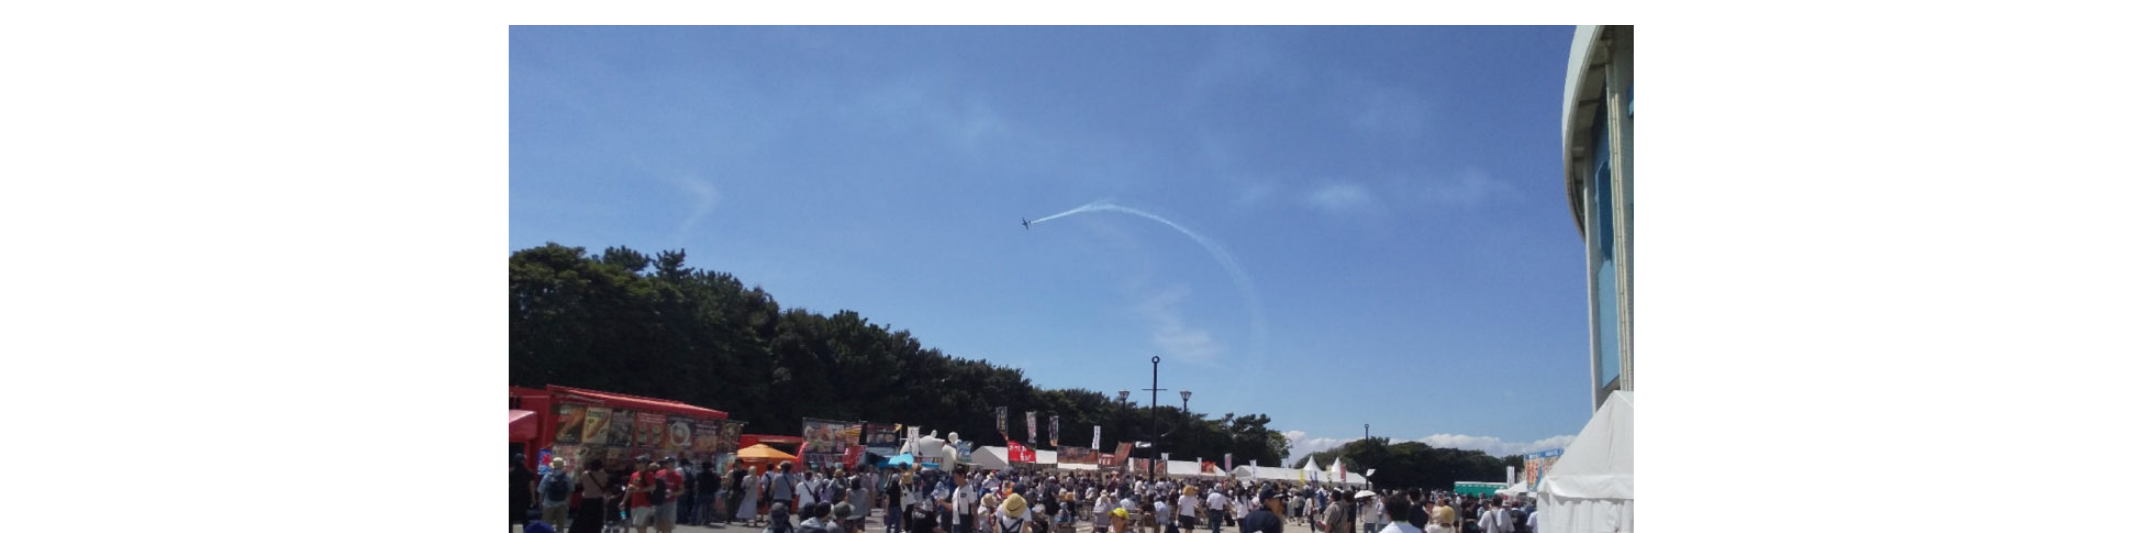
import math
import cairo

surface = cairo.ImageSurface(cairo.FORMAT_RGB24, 2141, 533)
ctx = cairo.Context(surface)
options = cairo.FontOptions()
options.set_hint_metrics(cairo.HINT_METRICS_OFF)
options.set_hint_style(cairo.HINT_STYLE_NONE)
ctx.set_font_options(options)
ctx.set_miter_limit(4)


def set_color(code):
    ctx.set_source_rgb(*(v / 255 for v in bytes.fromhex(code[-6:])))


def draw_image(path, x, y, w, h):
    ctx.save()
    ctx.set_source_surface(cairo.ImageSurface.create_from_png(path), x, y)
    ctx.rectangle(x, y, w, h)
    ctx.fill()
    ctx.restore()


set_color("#ffffff")
ctx.paint()
draw_image("assets/img1.png", 508, 25, 1126, 508)
surface.write_to_png("output.png")
